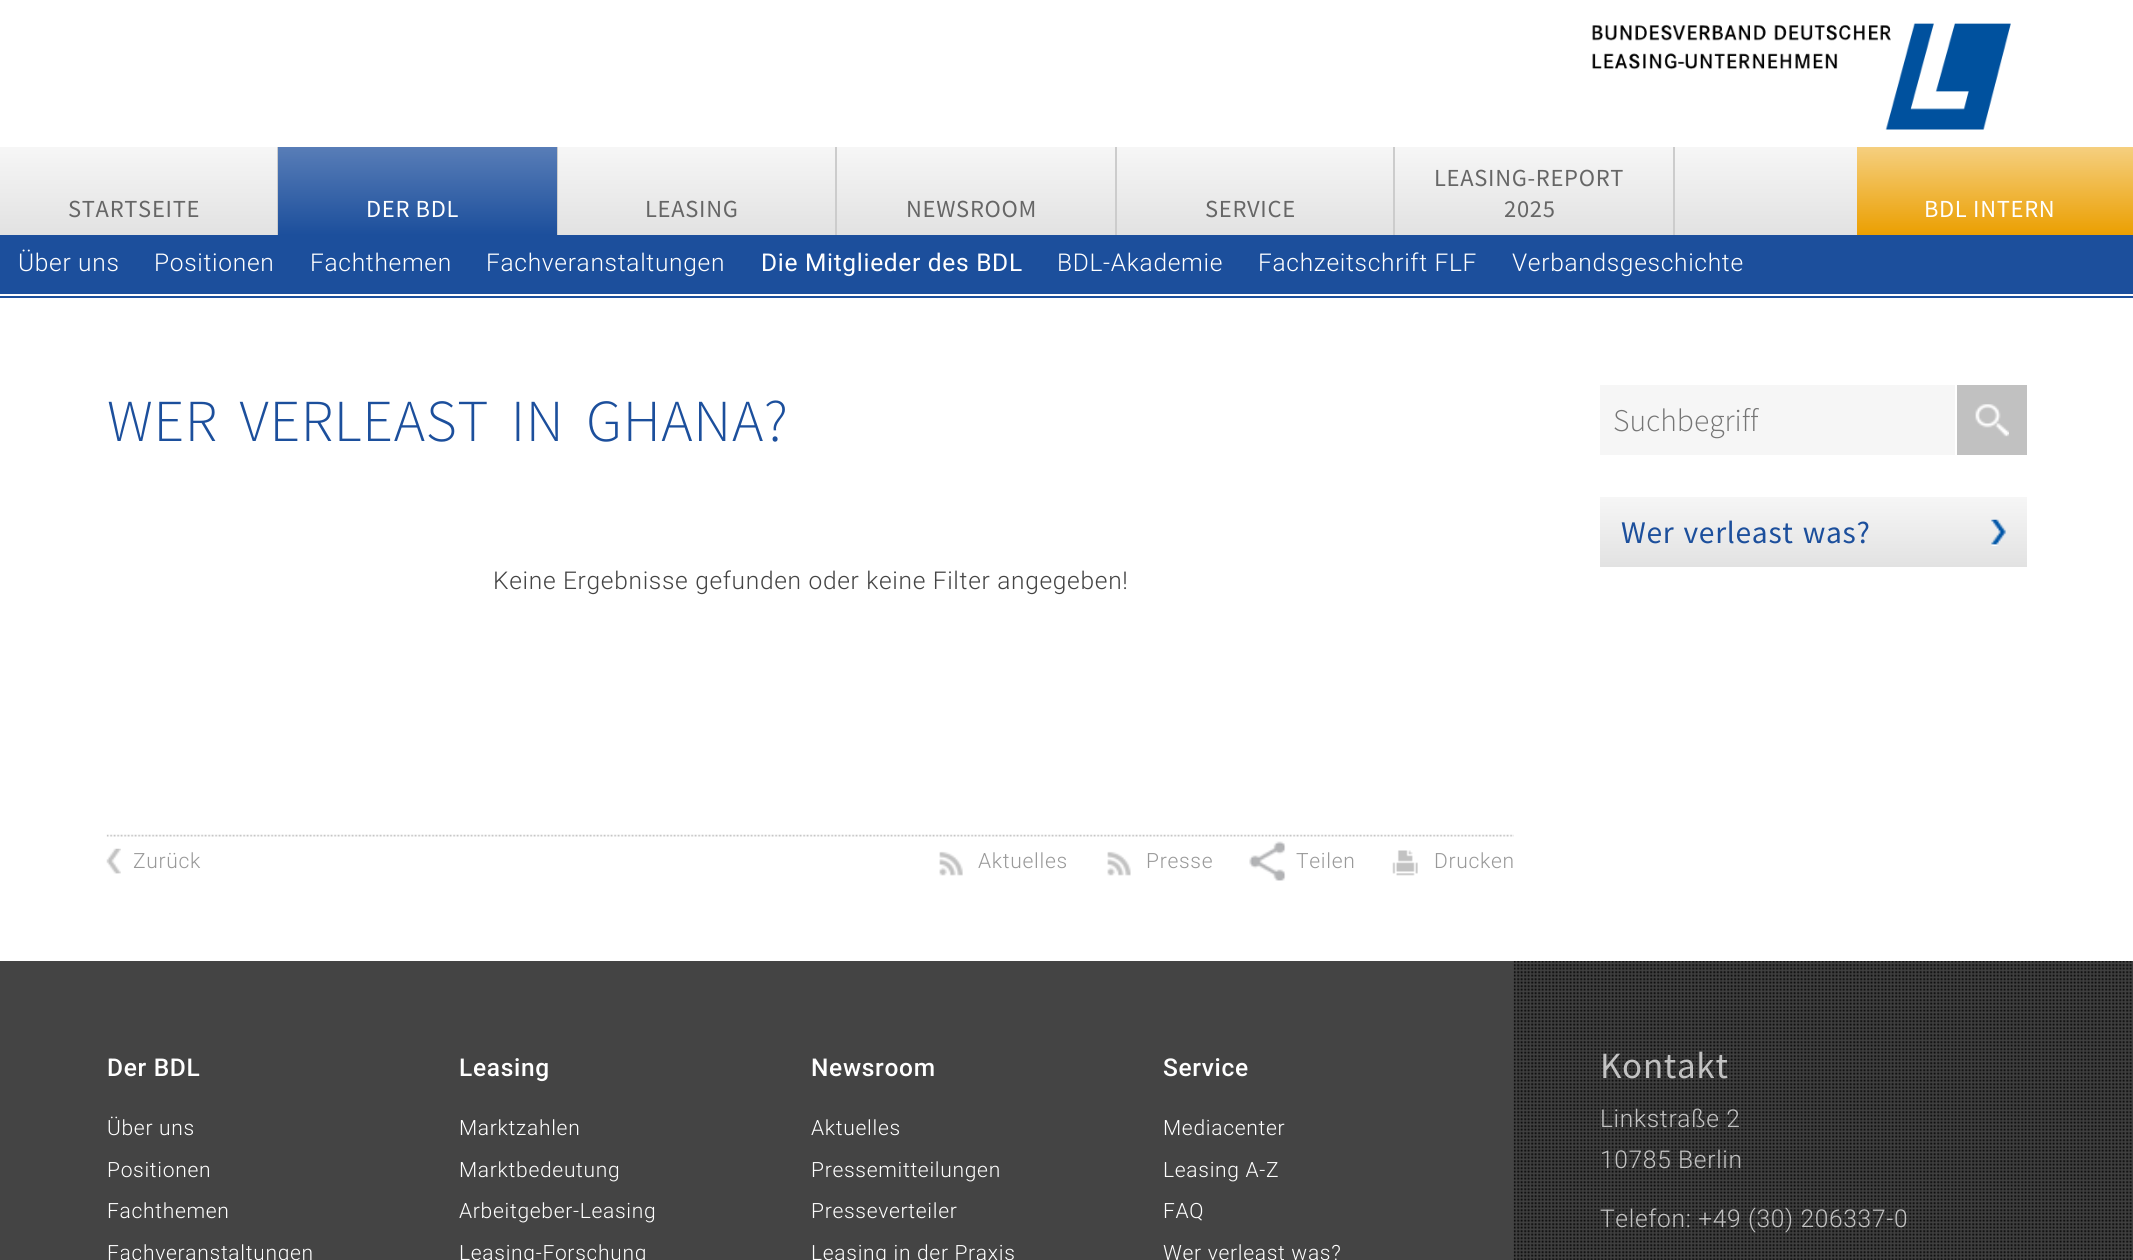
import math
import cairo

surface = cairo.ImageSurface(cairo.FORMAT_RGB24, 2133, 1260)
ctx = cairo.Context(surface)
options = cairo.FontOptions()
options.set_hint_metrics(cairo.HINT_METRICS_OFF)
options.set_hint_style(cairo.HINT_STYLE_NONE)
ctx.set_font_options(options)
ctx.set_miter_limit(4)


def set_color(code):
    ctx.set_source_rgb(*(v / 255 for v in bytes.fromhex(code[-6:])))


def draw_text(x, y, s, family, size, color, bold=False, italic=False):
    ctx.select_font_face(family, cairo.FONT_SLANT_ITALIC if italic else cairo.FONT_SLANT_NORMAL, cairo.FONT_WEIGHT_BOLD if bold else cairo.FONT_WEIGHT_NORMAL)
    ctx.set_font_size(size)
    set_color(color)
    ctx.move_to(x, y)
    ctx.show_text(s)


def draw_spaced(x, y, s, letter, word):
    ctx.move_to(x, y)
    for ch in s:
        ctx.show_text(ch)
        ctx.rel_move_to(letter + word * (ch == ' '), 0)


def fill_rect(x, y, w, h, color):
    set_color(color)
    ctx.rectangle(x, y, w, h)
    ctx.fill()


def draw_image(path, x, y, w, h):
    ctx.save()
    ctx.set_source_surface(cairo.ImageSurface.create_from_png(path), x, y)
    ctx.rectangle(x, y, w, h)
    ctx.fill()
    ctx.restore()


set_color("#ffffff")
ctx.paint()
draw_image("assets/img1.png", 1592, 23, 419, 107)
gradient = cairo.LinearGradient(0, 147, 0, 235)
gradient.add_color_stop_rgba(0, 0.965, 0.965, 0.965, 1)
gradient.add_color_stop_rgba(1, 0.886, 0.886, 0.886, 1)
ctx.set_source(gradient)
ctx.rectangle(1675, 147, 182, 88)
ctx.fill()
fill_rect(277, 147, 1, 88, "#cccccc")
gradient = cairo.LinearGradient(0, 147, 0, 235)
gradient.add_color_stop_rgba(0, 0.965, 0.965, 0.965, 1)
gradient.add_color_stop_rgba(1, 0.886, 0.886, 0.886, 1)
ctx.set_source(gradient)
ctx.rectangle(0, 147, 277, 88)
ctx.fill()
ctx.select_font_face("Source Sans Pro")
ctx.set_font_size(24.5)
set_color("#666666")
draw_spaced(68, 217, "STARTSEITE", 0.7, 0)
fill_rect(557, 147, 1, 88, "#cccccc")
gradient = cairo.LinearGradient(278, 147, 278, 235)
gradient.add_color_stop_rgba(0, 0.345, 0.49, 0.718, 1)
gradient.add_color_stop_rgba(1, 0.11, 0.31, 0.612, 1)
ctx.set_source(gradient)
ctx.rectangle(278, 147, 279, 88)
ctx.fill()
set_color("#ffffff")
draw_spaced(366, 217, "DER BDL", 0.7, 0)
fill_rect(835, 147, 2, 88, "#cccccc")
gradient = cairo.LinearGradient(558, 147, 558, 235)
gradient.add_color_stop_rgba(0, 0.965, 0.965, 0.965, 1)
gradient.add_color_stop_rgba(1, 0.886, 0.886, 0.886, 1)
ctx.set_source(gradient)
ctx.rectangle(558, 147, 277, 88)
ctx.fill()
set_color("#666666")
draw_spaced(645, 217, "LEASING", 0.7, 0)
fill_rect(1115, 147, 2, 88, "#cccccc")
gradient = cairo.LinearGradient(837, 147, 837, 235)
gradient.add_color_stop_rgba(0, 0.965, 0.965, 0.965, 1)
gradient.add_color_stop_rgba(1, 0.886, 0.886, 0.886, 1)
ctx.set_source(gradient)
ctx.rectangle(837, 147, 278, 88)
ctx.fill()
set_color("#666666")
draw_spaced(906, 217, "NEWSROOM", 0.7, 0)
fill_rect(1393, 147, 2, 88, "#cccccc")
gradient = cairo.LinearGradient(1117, 147, 1117, 235)
gradient.add_color_stop_rgba(0, 0.965, 0.965, 0.965, 1)
gradient.add_color_stop_rgba(1, 0.886, 0.886, 0.886, 1)
ctx.set_source(gradient)
ctx.rectangle(1117, 147, 276, 88)
ctx.fill()
set_color("#666666")
draw_spaced(1205, 217, "SERVICE", 0.7, 0)
fill_rect(1673, 147, 2, 88, "#cccccc")
gradient = cairo.LinearGradient(1395, 147, 1395, 235)
gradient.add_color_stop_rgba(0, 0.965, 0.965, 0.965, 1)
gradient.add_color_stop_rgba(1, 0.886, 0.886, 0.886, 1)
ctx.set_source(gradient)
ctx.rectangle(1395, 147, 278, 88)
ctx.fill()
set_color("#666666")
draw_spaced(1434, 186, "LEASING-REPORT", 0.7, 0)
draw_spaced(1504, 217, "2025", 0.7, 0)
gradient = cairo.LinearGradient(1857, 147, 1857, 235)
gradient.add_color_stop_rgba(0, 0.961, 0.812, 0.498, 1)
gradient.add_color_stop_rgba(1, 0.922, 0.624, 0.004, 1)
ctx.set_source(gradient)
ctx.rectangle(1857, 147, 276, 88)
ctx.fill()
set_color("#ffffff")
draw_spaced(1924, 217, "BDL INTERN", 0.7, 0)
fill_rect(0, 235, 2133, 59, "#1c4f9c")
ctx.select_font_face("Roboto Light")
set_color("#ffffff")
draw_spaced(18, 271, "Über uns", 0.7, 0)
draw_spaced(154, 271, "Positionen", 0.7, 0)
draw_spaced(310, 271, "Fachthemen", 0.7, 0)
draw_spaced(486, 271, "Fachveranstaltungen", 0.7, 0)
ctx.select_font_face("Roboto")
draw_spaced(761, 271, "Die Mitglieder des BDL", 0.7, 0)
ctx.select_font_face("Roboto Light")
draw_spaced(1057, 271, "BDL-Akademie", 0.7, 0)
draw_spaced(1258, 271, "Fachzeitschrift FLF", 0.7, 0)
draw_spaced(1512, 271, "Verbandsgeschichte", 0.7, 0)
fill_rect(0, 296, 2133, 2, "#1c4f9c")
ctx.select_font_face("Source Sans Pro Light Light")
ctx.set_font_size(59.5)
draw_spaced(107, 441, "WER VERLEAST IN GHANA?", 0.7, 9)
ctx.select_font_face("Roboto Light")
ctx.set_font_size(24.5)
set_color("#444444")
draw_spaced(493, 589, "Keine Ergebnisse gefunden oder keine Filter angegeben!", 0.7, 0)
draw_image("assets/img2.png", 106, 834, 1408, 3)
draw_image("assets/img3.png", 106, 848, 15, 26)
ctx.set_font_size(21)
set_color("#999999")
draw_spaced(133, 868, "Zurück", 0.7, 0)
draw_image("assets/img4.png", 939, 851, 24, 25)
draw_spaced(978, 868, "Aktuelles", 0.7, 0)
draw_image("assets/img5.png", 1107, 851, 24, 25)
draw_spaced(1146, 868, "Presse", 0.7, 0)
draw_image("assets/img6.png", 1249, 841, 37, 40)
draw_spaced(1296, 868, "Teilen", 0.7, 0)
draw_image("assets/img7.png", 1392, 850, 26, 26)
draw_spaced(1434, 868, "Drucken", 0.7, 0)
fill_rect(1600, 385, 355, 70, "#f6f6f6")
draw_text(1613, 431, "Suchbegriff", "Source Sans Pro Light Light", 31.5, "#757575")
fill_rect(1957, 385, 70, 70, "#c1c1c1")
draw_image("assets/img8.png", 1975, 404, 34, 33)
gradient = cairo.LinearGradient(1600, 497, 1600, 567)
gradient.add_color_stop_rgba(0, 0.965, 0.965, 0.965, 1)
gradient.add_color_stop_rgba(1, 0.886, 0.886, 0.886, 1)
ctx.set_source(gradient)
ctx.rectangle(1600, 497, 427, 70)
ctx.fill()
draw_image("assets/img9.png", 1991, 519, 15, 27)
ctx.select_font_face("Source Sans Pro")
set_color("#1c4f9c")
draw_spaced(1621, 543, "Wer verleast was?", 0.7, 2)
fill_rect(0, 961, 2133, 299, "#444444")
draw_image("assets/img10.png", 1513, 961, 620, 299)
ctx.select_font_face("Roboto Medium")
ctx.set_font_size(24.5)
set_color("#ffffff")
draw_spaced(107, 1076, "Der BDL", 0.7, 0)
ctx.select_font_face("Roboto Light")
ctx.set_font_size(21)
draw_spaced(107, 1135, "Über uns", 0.7, 0)
draw_spaced(107, 1177, "Positionen", 0.7, 0)
draw_spaced(107, 1218, "Fachthemen", 0.7, 0)
draw_spaced(107, 1260, "Fachveranstaltungen", 0.7, 0)
ctx.select_font_face("Roboto Medium")
ctx.set_font_size(24.5)
draw_spaced(459, 1076, "Leasing", 0.7, 0)
ctx.select_font_face("Roboto Light")
ctx.set_font_size(21)
draw_spaced(459, 1135, "Marktzahlen", 0.7, 0)
draw_spaced(459, 1177, "Marktbedeutung", 0.7, 0)
draw_spaced(459, 1218, "Arbeitgeber-Leasing", 0.7, 0)
draw_spaced(459, 1260, "Leasing-Forschung", 0.7, 0)
ctx.select_font_face("Roboto Medium")
ctx.set_font_size(24.5)
draw_spaced(811, 1076, "Newsroom", 0.7, 0)
ctx.select_font_face("Roboto Light")
ctx.set_font_size(21)
draw_spaced(811, 1135, "Aktuelles", 0.7, 0)
draw_spaced(811, 1177, "Pressemitteilungen", 0.7, 0)
draw_spaced(811, 1218, "Presseverteiler", 0.7, 0)
draw_spaced(811, 1260, "Leasing in der Praxis", 0.7, 0)
ctx.select_font_face("Roboto Medium")
ctx.set_font_size(24.5)
draw_spaced(1163, 1076, "Service", 0.7, 0)
ctx.select_font_face("Roboto Light")
ctx.set_font_size(21)
draw_spaced(1163, 1135, "Mediacenter", 0.7, 0)
draw_spaced(1163, 1177, "Leasing A-Z", 0.7, 0)
draw_spaced(1163, 1218, "FAQ", 0.7, 0)
draw_spaced(1163, 1260, "Wer verleast was?", 0.7, 0)
ctx.select_font_face("Source Sans Pro")
ctx.set_font_size(37)
set_color("#c2c2c2")
draw_spaced(1600, 1078, "Kontakt", 0.7, 0)
ctx.select_font_face("Roboto Light")
ctx.set_font_size(24.5)
draw_spaced(1600, 1127, "Linkstraße 2", 0.7, 0)
draw_spaced(1600, 1168, "10785 Berlin", 0.7, 0)
draw_spaced(1600, 1227, "Telefon: +49 (30) 206337-0", 0.7, 0)
surface.write_to_png("output.png")
